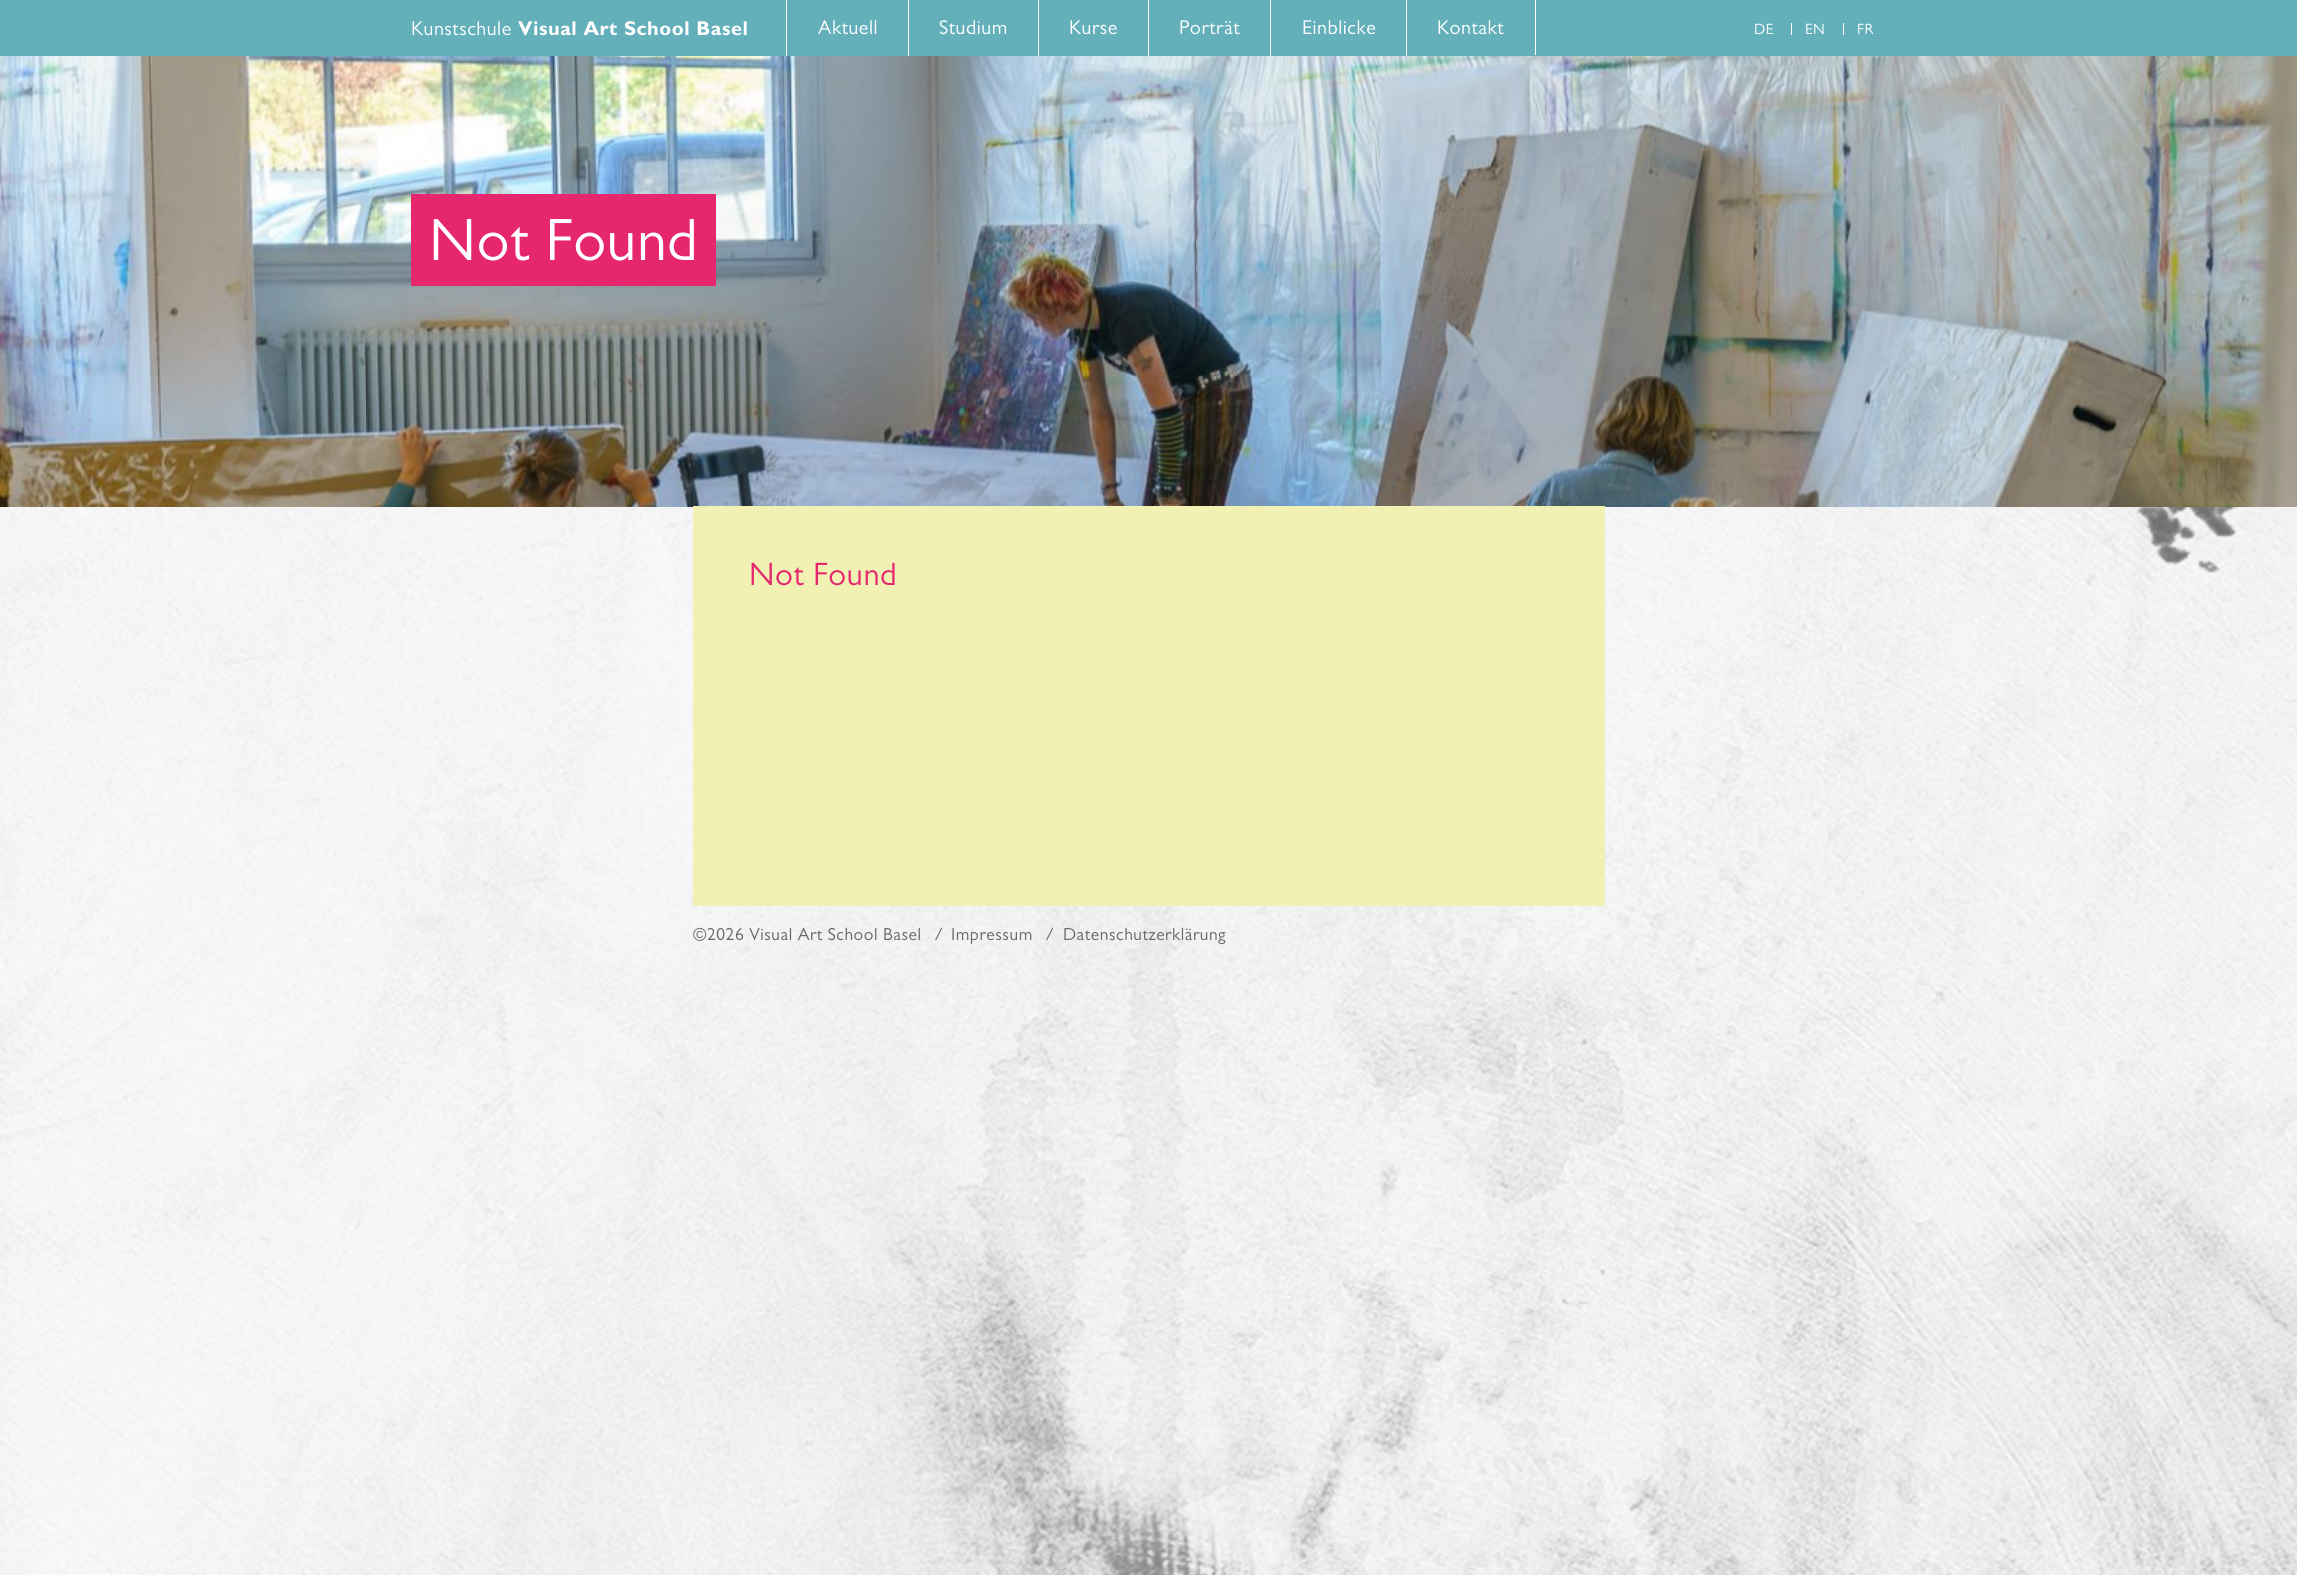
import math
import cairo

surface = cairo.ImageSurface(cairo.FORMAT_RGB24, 2297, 1575)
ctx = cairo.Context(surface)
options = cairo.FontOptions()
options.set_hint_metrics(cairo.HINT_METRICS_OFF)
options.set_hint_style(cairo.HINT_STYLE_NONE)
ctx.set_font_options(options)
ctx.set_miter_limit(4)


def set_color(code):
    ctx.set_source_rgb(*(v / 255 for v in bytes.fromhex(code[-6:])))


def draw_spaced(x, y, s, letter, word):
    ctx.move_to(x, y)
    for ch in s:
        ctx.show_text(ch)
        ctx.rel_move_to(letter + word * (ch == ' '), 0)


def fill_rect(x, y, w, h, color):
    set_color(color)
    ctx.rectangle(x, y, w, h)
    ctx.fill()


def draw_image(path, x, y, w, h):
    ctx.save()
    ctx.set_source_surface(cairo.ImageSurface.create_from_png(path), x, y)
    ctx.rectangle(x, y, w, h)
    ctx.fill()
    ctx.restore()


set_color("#ffffff")
ctx.paint()
fill_rect(0, 0, 2297, 56, "#63b0bb")
ctx.select_font_face("Gill Sans")
ctx.set_font_size(20)
set_color("#ffffff")
draw_spaced(411, 35, "Kunstschule", 0.55, 0)
ctx.select_font_face("Gill Sans", cairo.FONT_SLANT_NORMAL, cairo.FONT_WEIGHT_BOLD)
draw_spaced(518, 35, "Visual Art School Basel", 0.55, 0)
fill_rect(786, 0, 1, 56, "#ffffff")
ctx.select_font_face("Gill Sans")
draw_spaced(818, 34, "Aktuell", 0.55, 0)
fill_rect(908, 0, 1, 56, "#ffffff")
draw_spaced(939, 34, "Studium", 0.55, 0)
fill_rect(1038, 0, 1, 56, "#ffffff")
draw_spaced(1069, 34, "Kurse", 0.55, 0)
fill_rect(1148, 0, 1, 56, "#ffffff")
draw_spaced(1179, 34, "Porträt", 0.55, 0)
fill_rect(1270, 0, 1, 56, "#ffffff")
draw_spaced(1302, 34, "Einblicke", 0.55, 0)
fill_rect(1535, 0, 1, 56, "#ffffff")
fill_rect(1535, 55, 1, 1, "#63b0bb")
fill_rect(1406, 0, 1, 56, "#ffffff")
draw_spaced(1437, 34, "Kontakt", 0.55, 0)
ctx.set_font_size(15)
draw_spaced(1754, 34, "DE", 0.55, 0)
fill_rect(1791, 23, 1, 12, "#ffffff")
draw_spaced(1805, 34, "EN", 0.55, 0)
fill_rect(1843, 23, 1, 12, "#ffffff")
draw_spaced(1857, 34, "FR", 0.55, 0)
draw_image("assets/img1.png", 0, 56, 2297, 451)
fill_rect(411, 194, 305, 92, "#e6276e")
ctx.set_font_size(60)
set_color("#ffffff")
draw_spaced(429, 260, "Not Found", 0.55, 0)
draw_image("assets/img2.png", 0, 507, 2297, 1068)
fill_rect(693, 506, 912, 400, "#f1f1b3")
ctx.set_font_size(32.5)
set_color("#e6276e")
draw_spaced(749, 585, "Not Found", 0.55, 0)
ctx.set_font_size(17.5)
set_color("#666666")
draw_spaced(693, 940, "©2026 Visual Art School Basel", 0.55, 0)
draw_spaced(934, 940, "/", 0.55, 0)
draw_spaced(951, 940, "Impressum", 0.55, 0)
draw_spaced(1045, 940, "/", 0.55, 0)
draw_spaced(1063, 940, "Datenschutzerklärung", 0.55, 0)
surface.write_to_png("output.png")
